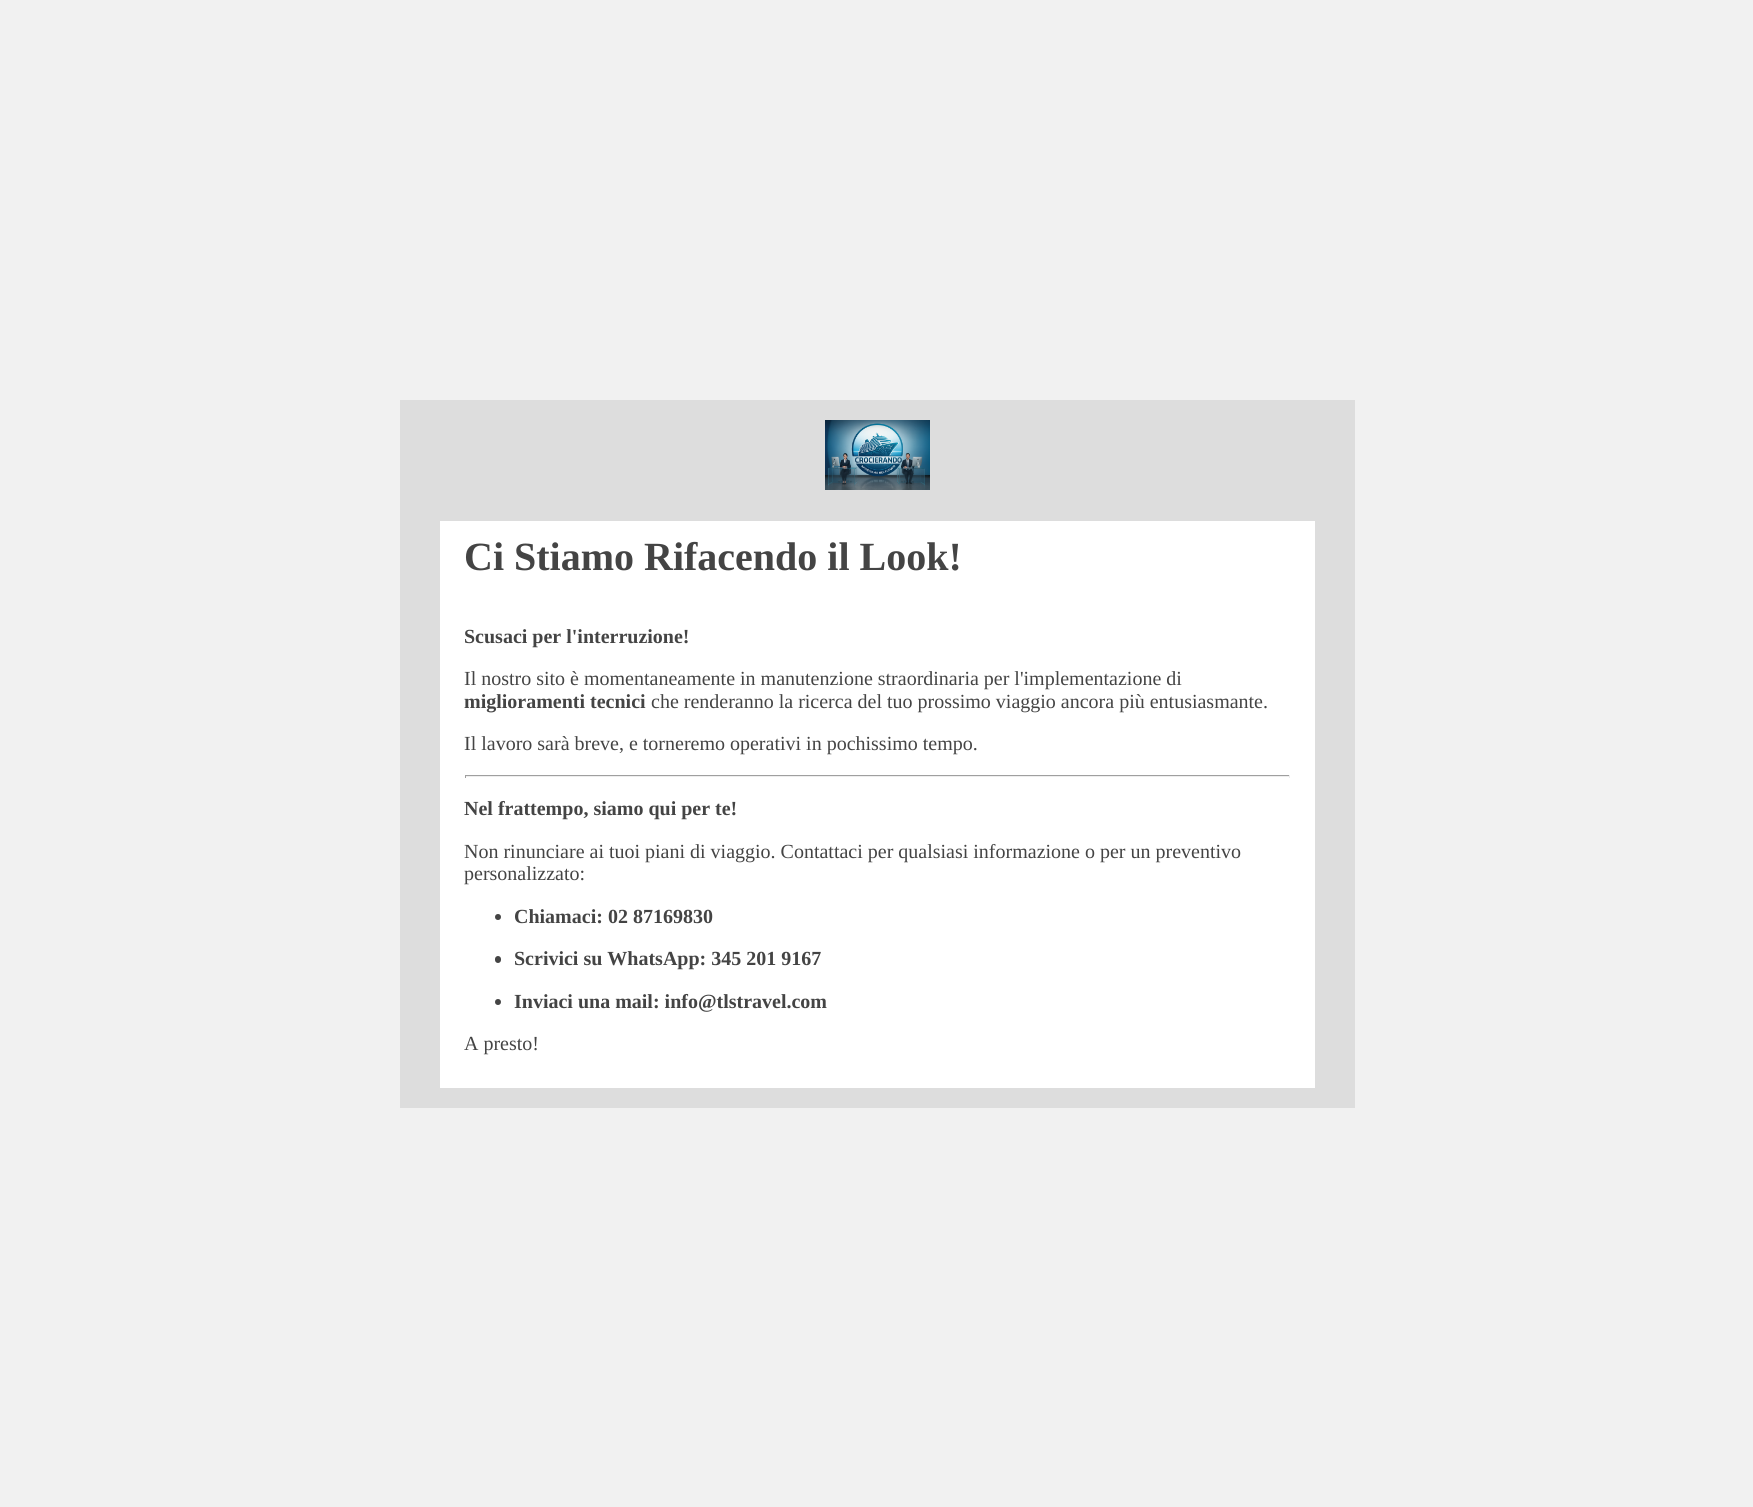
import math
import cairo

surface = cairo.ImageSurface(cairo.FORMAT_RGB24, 1753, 1507)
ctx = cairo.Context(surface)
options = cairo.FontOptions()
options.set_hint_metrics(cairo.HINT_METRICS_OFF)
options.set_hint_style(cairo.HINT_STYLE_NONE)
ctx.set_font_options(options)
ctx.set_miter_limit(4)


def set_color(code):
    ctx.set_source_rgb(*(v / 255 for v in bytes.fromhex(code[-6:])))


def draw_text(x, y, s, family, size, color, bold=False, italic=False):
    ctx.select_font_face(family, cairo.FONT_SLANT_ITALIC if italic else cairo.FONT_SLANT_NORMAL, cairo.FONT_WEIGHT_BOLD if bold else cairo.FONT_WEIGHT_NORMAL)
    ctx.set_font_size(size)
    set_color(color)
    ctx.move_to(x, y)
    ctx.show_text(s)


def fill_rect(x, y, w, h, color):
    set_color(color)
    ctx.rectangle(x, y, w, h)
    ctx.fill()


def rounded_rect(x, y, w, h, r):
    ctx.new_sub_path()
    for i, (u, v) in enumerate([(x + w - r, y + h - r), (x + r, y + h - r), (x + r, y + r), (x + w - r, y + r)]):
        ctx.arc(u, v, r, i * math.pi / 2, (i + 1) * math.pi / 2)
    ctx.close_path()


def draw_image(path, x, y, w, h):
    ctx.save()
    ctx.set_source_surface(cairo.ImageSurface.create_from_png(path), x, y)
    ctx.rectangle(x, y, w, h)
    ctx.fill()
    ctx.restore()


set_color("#f1f1f1")
ctx.paint()
fill_rect(400, 400, 955, 708, "#dddddd")
draw_image("assets/img1.png", 825, 420, 105, 70)
fill_rect(440, 521, 875, 567, "#ffffff")
draw_text(464, 570, "Ci Stiamo Rifacendo il Look!", "Liberation Serif", 40, "#444444", bold=True)
draw_text(464, 643, "Scusaci per l'interruzione!", "Liberation Serif", 20, "#444444", bold=True)
draw_text(464, 685, "Il nostro sito è momentaneamente in manutenzione straordinaria per l'implementazione di", "Liberation Serif", 20, "#444444")
draw_text(464, 708, "miglioramenti tecnici", "Liberation Serif", 20, "#444444", bold=True)
draw_text(651, 708, "che renderanno la ricerca del tuo prossimo viaggio ancora più entusiasmante.", "Liberation Serif", 20, "#444444")
draw_text(464, 750, "Il lavoro sarà breve, e torneremo operativi in pochissimo tempo.", "Liberation Serif", 20, "#444444")
fill_rect(465, 775, 825, 1, "#9f9f9f")
fill_rect(1289, 775, 1, 3, "#eeeeee")
fill_rect(465, 776, 825, 1, "#eeeeee")
fill_rect(465, 775, 1, 3, "#9f9f9f")
draw_text(464, 815, "Nel frattempo, siamo qui per te!", "Liberation Serif", 20, "#444444", bold=True)
draw_text(464, 858, "Non rinunciare ai tuoi piani di viaggio. Contattaci per qualsiasi informazione o per un preventivo", "Liberation Serif", 20, "#444444")
draw_text(464, 880, "personalizzato:", "Liberation Serif", 20, "#444444")
ctx.new_path()
ctx.arc(498, 917, 3, 0, 2 * math.pi)
ctx.fill()
draw_text(514, 923, "Chiamaci: 02 87169830", "Liberation Serif", 20, "#444444", bold=True)
rounded_rect(495, 956, 6, 7, 3)
ctx.fill()
draw_text(514, 965, "Scrivici su WhatsApp: 345 201 9167", "Liberation Serif", 20, "#444444", bold=True)
ctx.new_path()
ctx.arc(498, 1002, 3, 0, 2 * math.pi)
ctx.fill()
draw_text(514, 1008, "Inviaci una mail: info@tlstravel.com", "Liberation Serif", 20, "#444444", bold=True)
draw_text(464, 1050, "A presto!", "Liberation Serif", 20, "#444444")
surface.write_to_png("output.png")
